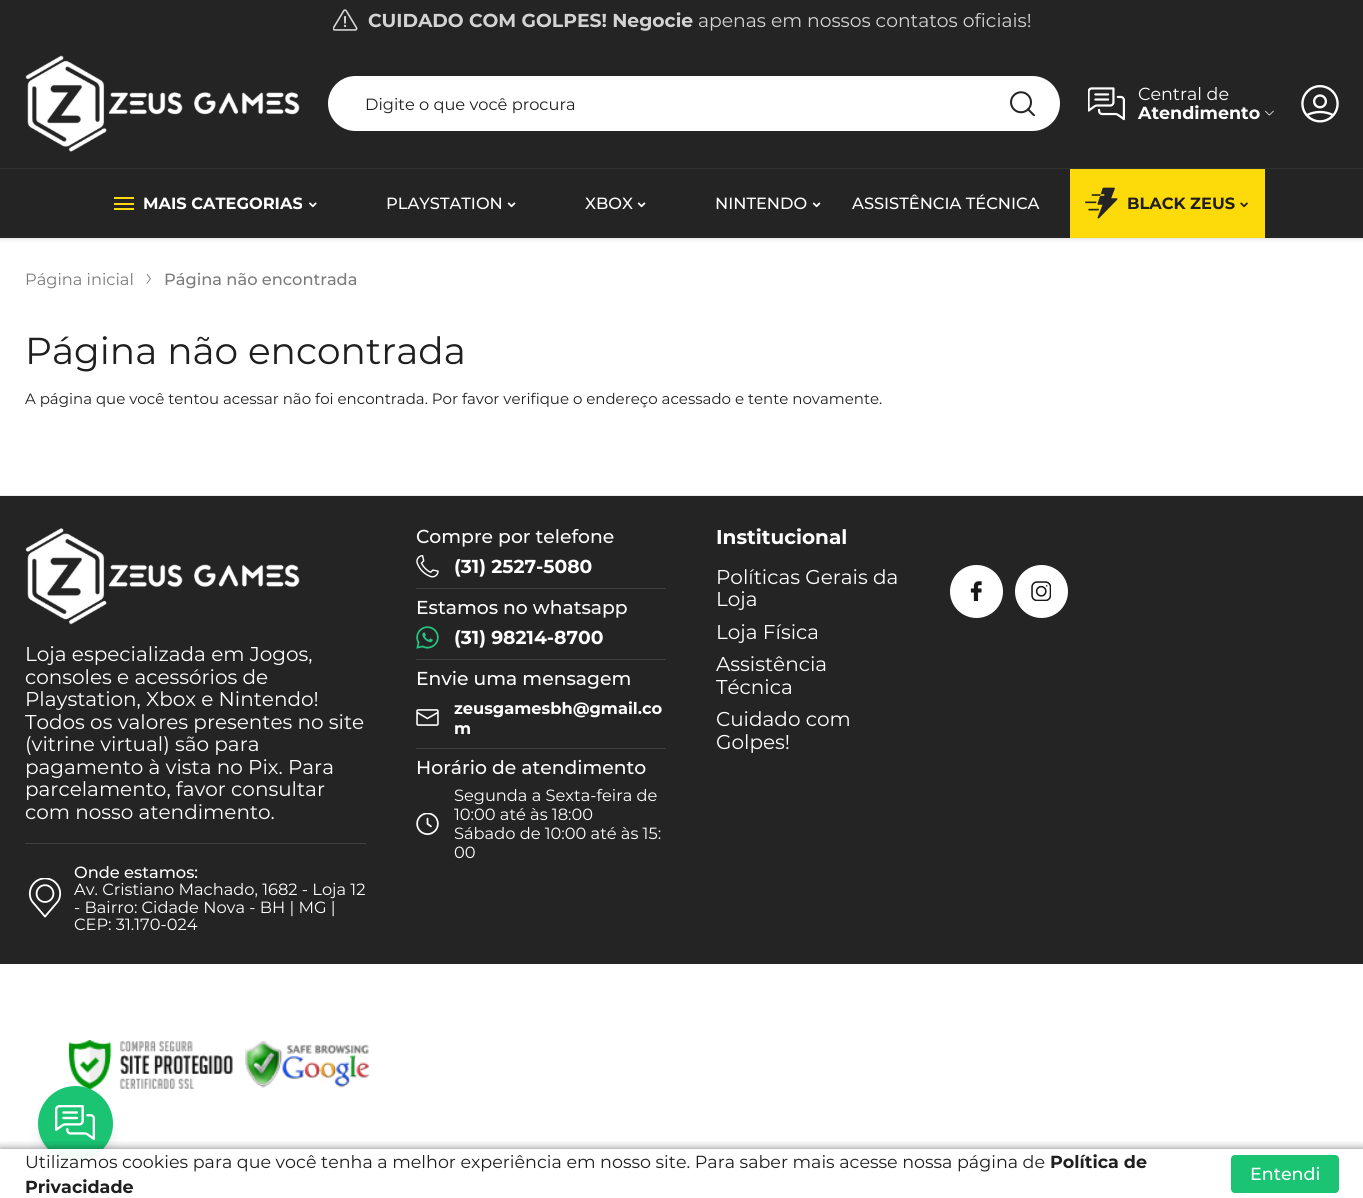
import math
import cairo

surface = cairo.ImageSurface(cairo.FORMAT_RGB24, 1363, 1198)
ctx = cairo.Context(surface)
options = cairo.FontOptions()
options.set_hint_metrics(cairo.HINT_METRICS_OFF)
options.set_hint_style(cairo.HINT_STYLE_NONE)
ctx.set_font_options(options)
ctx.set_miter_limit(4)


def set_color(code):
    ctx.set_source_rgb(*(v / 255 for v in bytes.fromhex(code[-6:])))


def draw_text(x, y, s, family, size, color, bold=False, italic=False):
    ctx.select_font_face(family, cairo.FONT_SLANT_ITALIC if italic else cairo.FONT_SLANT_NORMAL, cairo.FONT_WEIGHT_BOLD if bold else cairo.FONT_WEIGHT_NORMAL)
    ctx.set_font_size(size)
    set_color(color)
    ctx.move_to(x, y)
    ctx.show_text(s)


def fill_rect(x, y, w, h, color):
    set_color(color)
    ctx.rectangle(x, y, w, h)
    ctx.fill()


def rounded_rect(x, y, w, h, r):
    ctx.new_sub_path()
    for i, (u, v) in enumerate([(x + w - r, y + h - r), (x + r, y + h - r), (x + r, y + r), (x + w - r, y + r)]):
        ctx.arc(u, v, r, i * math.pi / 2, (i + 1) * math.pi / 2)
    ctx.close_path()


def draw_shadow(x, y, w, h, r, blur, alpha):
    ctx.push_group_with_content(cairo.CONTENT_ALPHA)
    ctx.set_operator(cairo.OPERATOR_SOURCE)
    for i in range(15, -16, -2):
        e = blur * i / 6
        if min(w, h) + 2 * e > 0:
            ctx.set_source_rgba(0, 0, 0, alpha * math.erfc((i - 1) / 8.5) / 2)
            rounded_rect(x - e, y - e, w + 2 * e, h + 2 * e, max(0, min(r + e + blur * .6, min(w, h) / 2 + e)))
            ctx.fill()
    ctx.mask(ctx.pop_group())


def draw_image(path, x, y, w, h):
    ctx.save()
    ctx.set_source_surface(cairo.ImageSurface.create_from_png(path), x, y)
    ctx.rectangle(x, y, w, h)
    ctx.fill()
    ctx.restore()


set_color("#ffffff")
ctx.paint()
fill_rect(0, 0, 1363, 40, "#242424")
draw_image("assets/img1.png", 333, 9, 25, 22)
draw_text(368, 27, "CUIDADO COM GOLPES! Negocie", "Montserrat", 18.75, "#d3d3d3", bold=True)
draw_text(698, 27, "apenas em nossos contatos oficiais!", "Montserrat", 18.75, "#d3d3d3")
set_color("#525252")
draw_shadow(0, 170, 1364, 69, 0, 2.5, 0.2)
fill_rect(0, 40, 1363, 128, "#242424")
fill_rect(0, 168, 1363, 1, "#323232")
draw_image("assets/img2.png", 25, 55, 275, 97)
set_color("#ffffff")
rounded_rect(328, 76, 732, 55, 27.5)
ctx.fill()
draw_text(365, 110, "Digite o que você procura", "Montserrat", 16.25, "#201f1f")
draw_image("assets/img3.png", 1010, 91, 25, 25)
draw_image("assets/img4.png", 1088, 87, 37, 34)
draw_text(1138, 100, "Central de", "Montserrat", 17.5, "#ffffff")
draw_text(1138, 119, "Atendimento", "Montserrat", 17.5, "#ffffff", bold=True)
draw_image("assets/img5.png", 1265, 110, 9, 6)
draw_image("assets/img6.png", 1301, 85, 38, 38)
fill_rect(0, 169, 1363, 69, "#242424")
fill_rect(114, 208, 20, 2, "#fdda09")
fill_rect(114, 203, 20, 2, "#fdda09")
fill_rect(114, 197, 20, 2, "#fdda09")
draw_text(143, 209, "MAIS CATEGORIAS", "Montserrat", 16.25, "#ffffff", bold=True)
draw_image("assets/img7.png", 309, 202, 8, 6)
draw_text(386, 209, "PLAYSTATION", "Montserrat Medium", 16.25, "#ffffff")
draw_image("assets/img8.png", 507, 202, 9, 6)
draw_text(585, 209, "XBOX", "Montserrat Medium", 16.25, "#ffffff")
draw_image("assets/img8.png", 637, 202, 9, 6)
draw_text(715, 209, "NINTENDO", "Montserrat Medium", 16.25, "#ffffff")
draw_image("assets/img8.png", 812, 202, 9, 6)
draw_text(852, 209, "ASSISTÊNCIA TÉCNICA", "Montserrat Medium", 16.25, "#ffffff")
fill_rect(1070, 169, 195, 69, "#fdda09")
draw_image("assets/img9.png", 1085, 187, 33, 32)
draw_text(1127, 209, "BLACK ZEUS", "Montserrat", 16.25, "#201f1f", bold=True)
draw_image("assets/img10.png", 1240, 202, 8, 6)
draw_text(25, 285, "Página inicial", "Montserrat", 16.25, "#7b7b7b")
draw_image("assets/img11.png", 146, 274, 5, 10)
draw_text(164, 285, "Página não encontrada", "Montserrat Medium", 16.25, "#7b7b7b")
draw_text(25, 364, "Página não encontrada", "Montserrat", 37.5, "#201f1f")
draw_text(25, 404, "A página que você tentou acessar não foi encontrada. Por favor verifique o endereço acessado e tente novamente.", "Montserrat", 15, "#201f1f")
fill_rect(0, 495, 1363, 1, "#efefef")
fill_rect(0, 496, 1363, 468, "#242424")
fill_rect(416, 588, 250, 1, "#404040")
draw_text(416, 543, "Compre por telefone", "Montserrat Medium", 18.75, "#ffffff")
draw_image("assets/img12.png", 416, 555, 23, 23)
draw_text(454, 573, "(31) 2527-5080", "Montserrat", 18.75, "#ffffff", bold=True)
fill_rect(416, 659, 250, 1, "#404040")
draw_text(416, 614, "Estamos no whatsapp", "Montserrat Medium", 18.75, "#ffffff")
draw_image("assets/img13.png", 416, 626, 23, 23)
draw_text(454, 644, "(31) 98214-8700", "Montserrat", 18.75, "#ffffff", bold=True)
fill_rect(416, 748, 250, 1, "#404040")
draw_text(416, 685, "Envie uma mensagem", "Montserrat Medium", 18.75, "#ffffff")
draw_image("assets/img14.png", 416, 709, 23, 17)
draw_text(454, 714, "zeusgamesbh@gmail.co", "Montserrat", 16.25, "#ffffff", bold=True)
draw_text(454, 734, "m", "Montserrat", 16.25, "#ffffff", bold=True)
draw_text(416, 774, "Horário de atendimento", "Montserrat Medium", 18.75, "#ffffff")
draw_image("assets/img15.png", 416, 813, 23, 22)
draw_text(454, 801, "Segunda a Sexta-feira de", "Montserrat", 16.25, "#ffffff")
draw_text(454, 820, "10:00 até às 18:00", "Montserrat", 16.25, "#ffffff")
draw_text(454, 839, "Sábado de 10:00 até às 15:", "Montserrat", 16.25, "#ffffff")
draw_text(454, 858, "00", "Montserrat", 16.25, "#ffffff")
draw_text(716, 544, "Institucional", "Montserrat", 20, "#ffffff", bold=True)
draw_text(716, 584, "Políticas Gerais da", "Montserrat", 20, "#ffffff")
draw_text(716, 606, "Loja", "Montserrat", 20, "#ffffff")
draw_text(716, 639, "Loja Física", "Montserrat", 20, "#ffffff")
draw_text(716, 671, "Assistência", "Montserrat", 20, "#ffffff")
draw_text(716, 694, "Técnica", "Montserrat", 20, "#ffffff")
draw_text(716, 726, "Cuidado com", "Montserrat", 20, "#ffffff")
draw_text(716, 749, "Golpes!", "Montserrat", 20, "#ffffff")
ctx.new_path()
ctx.arc(976.5, 591.5, 26.5, 0, 2 * math.pi)
ctx.fill()
draw_image("assets/img16.png", 970, 581, 12, 20)
ctx.arc(1041.5, 591.5, 26.5, 0, 2 * math.pi)
ctx.fill()
draw_image("assets/img17.png", 1031, 581, 20, 20)
draw_image("assets/img18.png", 25, 528, 275, 97)
draw_text(25, 661, "Loja especializada em Jogos,", "Montserrat", 20, "#ffffff")
draw_text(25, 684, "consoles e acessórios de", "Montserrat", 20, "#ffffff")
draw_text(25, 706, "Playstation, Xbox e Nintendo!", "Montserrat", 20, "#ffffff")
draw_text(25, 729, "Todos os valores presentes no site", "Montserrat", 20, "#ffffff")
draw_text(25, 751, "(vitrine virtual) são para", "Montserrat", 20, "#ffffff")
draw_text(25, 774, "pagamento à vista no Pix. Para", "Montserrat", 20, "#ffffff")
draw_text(25, 796, "parcelamento, favor consultar", "Montserrat", 20, "#ffffff")
draw_text(25, 819, "com nosso atendimento.", "Montserrat", 20, "#ffffff")
fill_rect(25, 843, 341, 1, "#404040")
draw_image("assets/img19.png", 28, 878, 34, 40)
draw_text(74, 878, "Onde estamos:", "Montserrat Medium", 16.25, "#ffffff")
draw_text(74, 895, "Av. Cristiano Machado, 1682 - Loja 12", "Montserrat", 16.25, "#ffffff")
draw_text(74, 913, "- Bairro: Cidade Nova - BH | MG |", "Montserrat", 16.25, "#ffffff")
draw_text(74, 930, "CEP: 31.170-024", "Montserrat", 16.25, "#ffffff")
draw_image("assets/img20.png", 68, 1040, 165, 50)
draw_image("assets/img21.png", 245, 1041, 125, 47)
set_color("#676767")
draw_shadow(38, 1099, 75, 75, 37.5, 5, 0.1)
set_color("#000000")
draw_shadow(38, 1089, 75, 75, 37.5, 0.5, 0.04)
set_color("#1ac473")
ctx.arc(75.5, 1123.5, 37.5, 0, 2 * math.pi)
ctx.fill()
draw_image("assets/img22.png", 55, 1105, 40, 35)
ctx.save()
ctx.rectangle(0, 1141, 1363, 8)
ctx.clip()
set_color("#000000")
draw_shadow(0, 1149, 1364, 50, 0, 4.5, 0.5)
ctx.restore()
ctx.set_source_rgba(1, 1, 1, 0.95)
ctx.rectangle(36, 1149, 79, 29)
ctx.fill()
draw_text(25, 1168, "Utilizamos cookies para que você tenha a melhor experiência em nosso site. Para saber mais acesse nossa página de", "Montserrat", 17.5, "#201f1f")
draw_text(1050, 1168, "Política de", "Montserrat", 17.5, "#201f1f", bold=True)
draw_text(25, 1193, "Privacidade", "Montserrat", 17.5, "#201f1f", bold=True)
set_color("#1ac473")
rounded_rect(1231, 1155, 108, 38, 4)
ctx.fill()
draw_text(1250, 1180, "Entendi", "Montserrat Medium", 17.5, "#ffffff")
surface.write_to_png("output.png")
